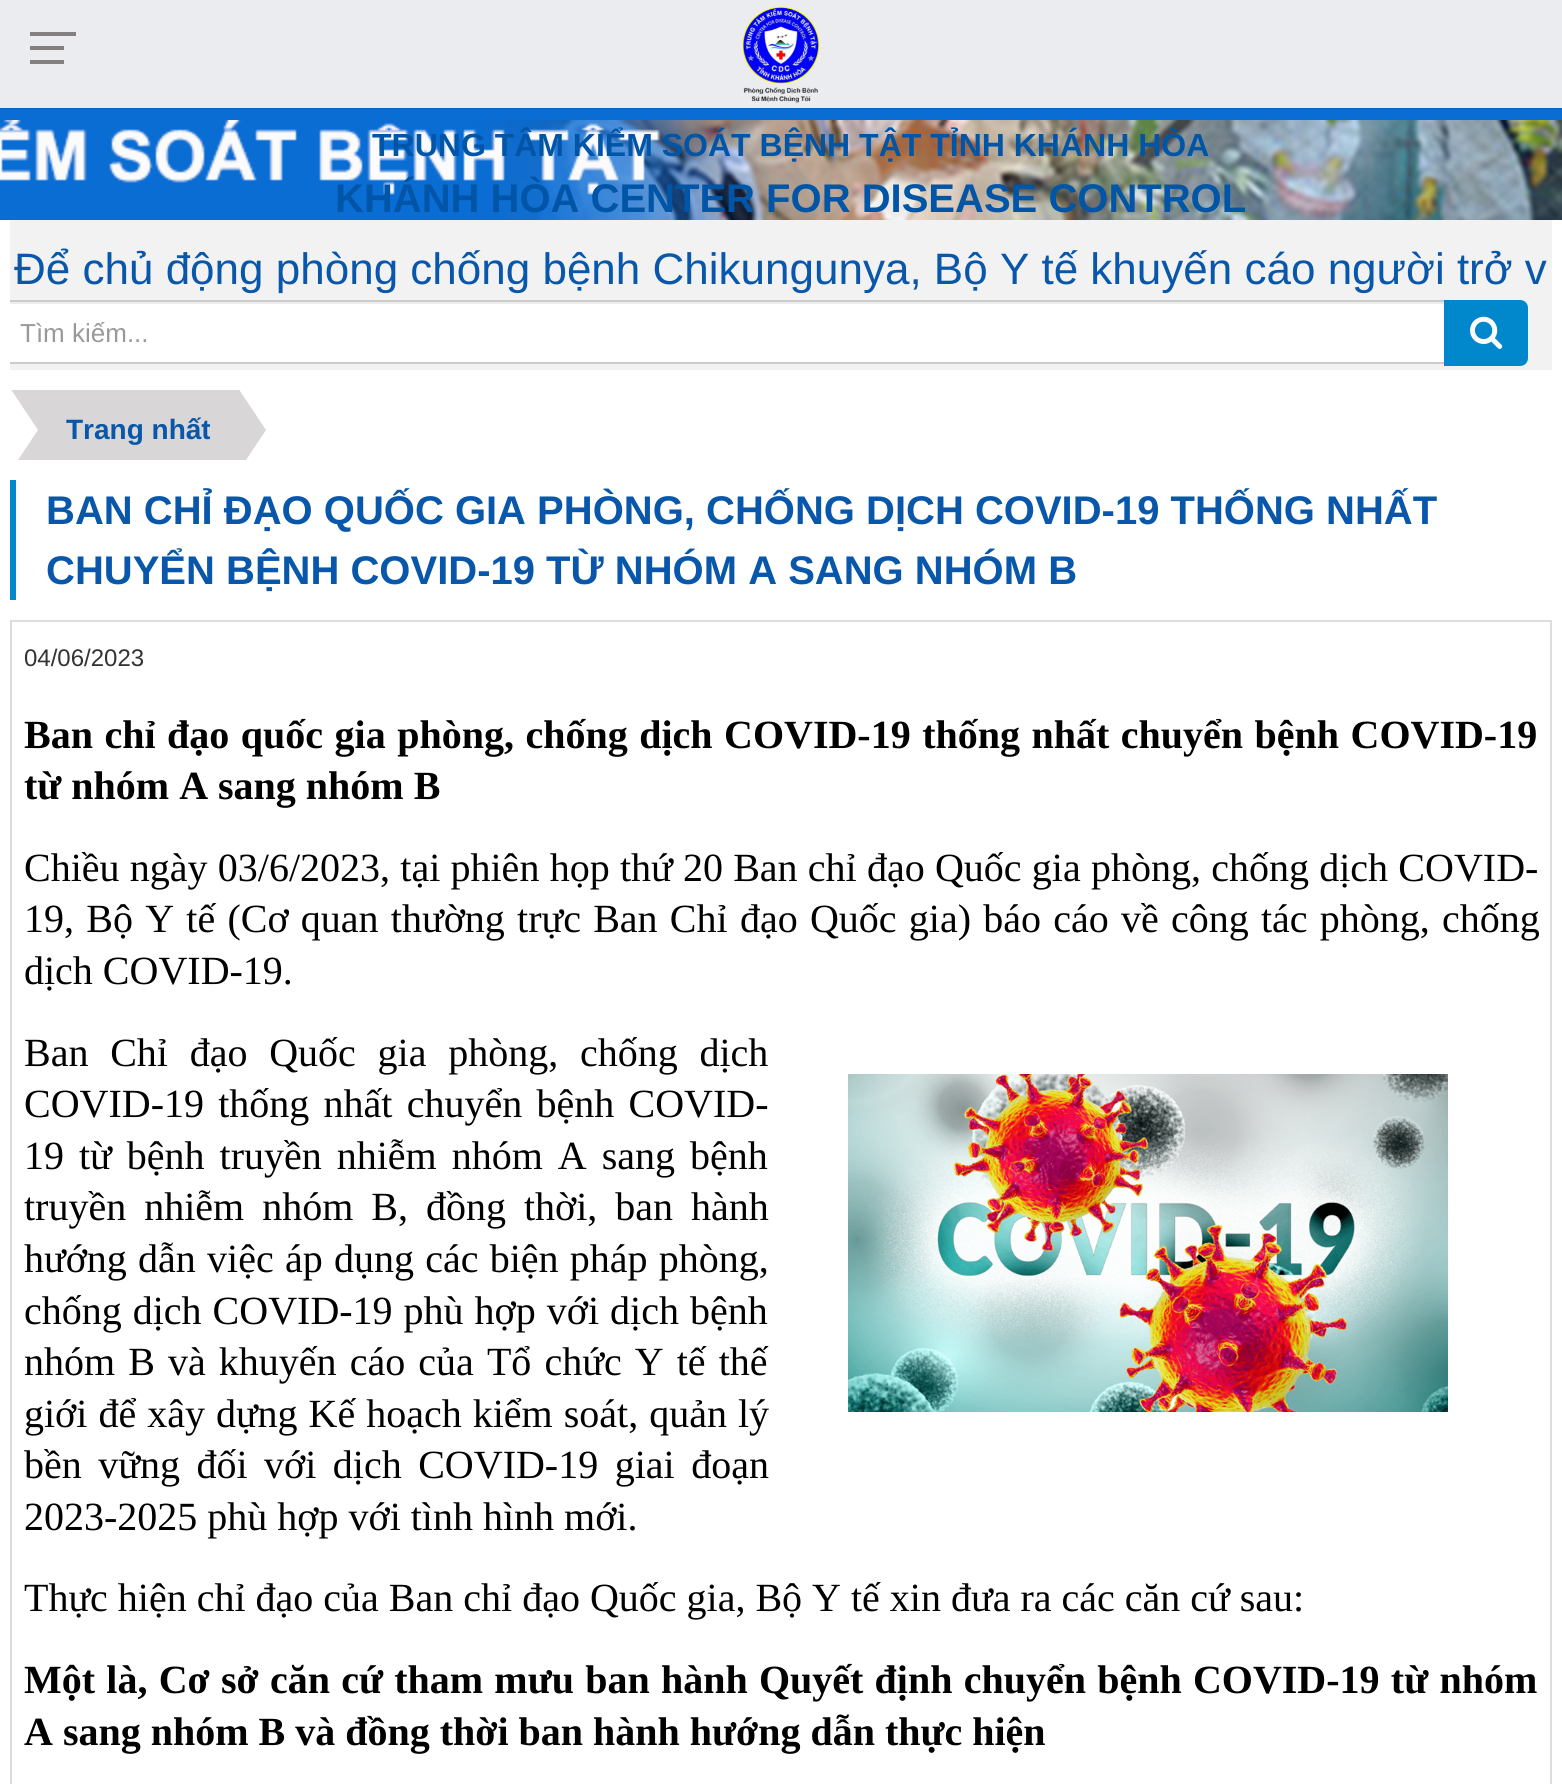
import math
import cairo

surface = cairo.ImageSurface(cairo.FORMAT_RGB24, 1562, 1784)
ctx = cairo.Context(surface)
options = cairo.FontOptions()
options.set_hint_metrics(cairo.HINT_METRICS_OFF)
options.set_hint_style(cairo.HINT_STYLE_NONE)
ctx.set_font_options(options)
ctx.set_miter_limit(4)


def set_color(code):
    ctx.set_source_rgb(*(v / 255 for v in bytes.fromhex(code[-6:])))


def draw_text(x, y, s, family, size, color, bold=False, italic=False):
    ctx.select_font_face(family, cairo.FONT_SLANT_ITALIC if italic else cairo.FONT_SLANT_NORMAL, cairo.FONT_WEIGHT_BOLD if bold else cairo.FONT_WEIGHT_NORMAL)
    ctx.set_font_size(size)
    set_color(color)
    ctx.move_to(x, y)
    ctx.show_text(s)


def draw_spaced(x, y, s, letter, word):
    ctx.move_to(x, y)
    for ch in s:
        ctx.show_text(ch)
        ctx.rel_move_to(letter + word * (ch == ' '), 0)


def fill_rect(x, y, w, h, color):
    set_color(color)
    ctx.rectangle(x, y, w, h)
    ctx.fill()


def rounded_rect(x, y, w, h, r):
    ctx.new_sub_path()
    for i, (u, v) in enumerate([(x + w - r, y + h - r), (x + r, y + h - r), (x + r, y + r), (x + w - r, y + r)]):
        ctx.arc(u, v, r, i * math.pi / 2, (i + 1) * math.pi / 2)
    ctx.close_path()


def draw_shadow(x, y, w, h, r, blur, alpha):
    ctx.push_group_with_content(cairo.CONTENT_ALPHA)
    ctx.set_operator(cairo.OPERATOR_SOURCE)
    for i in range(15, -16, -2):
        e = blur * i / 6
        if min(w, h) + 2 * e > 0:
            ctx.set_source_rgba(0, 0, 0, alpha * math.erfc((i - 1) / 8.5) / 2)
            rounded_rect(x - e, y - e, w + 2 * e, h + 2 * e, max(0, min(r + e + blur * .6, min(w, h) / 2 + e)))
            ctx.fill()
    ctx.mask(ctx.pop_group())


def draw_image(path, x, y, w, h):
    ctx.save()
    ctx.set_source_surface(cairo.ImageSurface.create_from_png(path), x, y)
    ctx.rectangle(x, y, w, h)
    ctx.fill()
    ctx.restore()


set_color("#ffffff")
ctx.paint()
fill_rect(0, 108, 1562, 12, "#0a6dd4")
set_color("#000000")
draw_shadow(0, 0, 1562, 108, 0, 1, 0.3)
fill_rect(0, 0, 1562, 108, "#eaecf0")
fill_rect(30, 46, 34, 4, "#848080")
fill_rect(30, 32, 46, 4, "#848080")
fill_rect(30, 60, 34, 4, "#848080")
draw_image("assets/img1.png", 742, 6, 78, 97)
draw_image("assets/img2.png", 0, 120, 1562, 100)
draw_text(372, 156, "TRUNG TÂM KIỂM SOÁT BỆNH TẬT TỈNH KHÁNH HÒA", "Liberation Sans", 32, "#0055a7", bold=True)
draw_text(335, 212, "KHÁNH HÒA CENTER FOR DISEASE CONTROL", "Liberation Sans", 40, "#0055a7", bold=True)
fill_rect(10, 220, 1542, 150, "#f2f2f2")
draw_text(14, 284, "Để chủ động phòng chống bệnh Chikungunya, Bộ Y tế khuyến cáo người trở v", "Liberation Sans", 44, "#0857aa")
fill_rect(10, 304, 1434, 58, "#ffffff")
ctx.save()
ctx.rectangle(10, 220, 1542, 150)
ctx.clip()
set_color("#ececec")
ctx.new_path()
ctx.move_to(2, 304)
ctx.line_to(1444, 304)
ctx.line_to(1444, 302)
ctx.line_to(2, 302)
ctx.curve_to(-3, 302, -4, 306, -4, 310)
ctx.curve_to(-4, 307, -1, 304, 2, 304)
ctx.close_path()
ctx.fill()
ctx.new_path()
ctx.move_to(2, 301)
ctx.line_to(1445, 301)
ctx.line_to(1445, 363)
ctx.line_to(2, 363)
ctx.curve_to(-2, 363, -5, 360, -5, 356)
ctx.line_to(-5, 308)
ctx.curve_to(-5, 304, -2, 301, 2, 301)
ctx.close_path()
set_color("#cccccc")
ctx.stroke()
ctx.restore()
draw_text(20, 342, "Tìm kiếm...", "Liberation Sans", 26, "#999999")
set_color("#0087cc")
ctx.new_path()
ctx.move_to(1445, 301)
ctx.line_to(1520, 301)
ctx.curve_to(1524, 301, 1527, 304, 1527, 308)
ctx.line_to(1527, 358)
ctx.curve_to(1527, 362, 1524, 365, 1520, 365)
ctx.line_to(1445, 365)
ctx.close_path()
ctx.fill_preserve()
ctx.stroke()
draw_image("assets/img3.png", 1470, 316, 33, 33)
fill_rect(38, 390, 200, 70, "#d8d6d6")
ctx.save()
ctx.rectangle(10, 390, 1542, 70)
ctx.clip()
ctx.new_path()
ctx.move_to(10, 388)
ctx.line_to(38, 388)
ctx.line_to(38, 430)
ctx.close_path()
ctx.fill()
ctx.new_path()
ctx.move_to(38, 472)
ctx.line_to(10, 472)
ctx.line_to(38, 430)
ctx.close_path()
ctx.fill()
ctx.restore()
draw_text(66, 439, "Trang nhất", "Liberation Sans", 28, "#0857aa", bold=True)
ctx.save()
ctx.rectangle(10, 390, 1542, 70)
ctx.clip()
set_color("#d8d6d6")
ctx.new_path()
ctx.move_to(238, 472)
ctx.line_to(238, 388)
ctx.line_to(266, 430)
ctx.close_path()
ctx.fill()
ctx.restore()
fill_rect(10, 480, 6, 120, "#0087cc")
draw_text(46, 524, "BAN CHỈ ĐẠO QUỐC GIA PHÒNG, CHỐNG DỊCH COVID-19 THỐNG NHẤT", "Liberation Sans", 40, "#0857aa", bold=True)
draw_text(46, 584, "CHUYỂN BỆNH COVID-19 TỪ NHÓM A SANG NHÓM B", "Liberation Sans", 40, "#0857aa", bold=True)
ctx.rectangle(11, 621, 1540, 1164)
set_color("#dddddd")
ctx.stroke()
draw_text(24, 666, "04/06/2023", "Liberation Sans", 24, "#333333")
ctx.select_font_face("Liberation Serif", cairo.FONT_SLANT_NORMAL, cairo.FONT_WEIGHT_BOLD)
ctx.set_font_size(40)
set_color("#000000")
draw_spaced(24, 748, "Ban chỉ đạo quốc gia phòng, chống dịch COVID-19 thống nhất chuyển bệnh COVID-19", 0, 1.5)
draw_text(24, 799, "từ nhóm A sang nhóm B", "Liberation Serif", 40, "#000000", bold=True)
ctx.select_font_face("Liberation Serif")
draw_spaced(24, 881, "Chiều ngày 03/6/2023, tại phiên họp thứ 20 Ban chỉ đạo Quốc gia phòng, chống dịch COVID-", 0, 0.25)
draw_spaced(24, 932, "19, Bộ Y tế (Cơ quan thường trực Ban Chỉ đạo Quốc gia) báo cáo về công tác phòng, chống", 0, 2.25)
draw_text(24, 984, "dịch COVID-19.", "Liberation Serif", 40, "#000000")
draw_spaced(24, 1066, "Ban Chỉ đạo Quốc gia phòng, chống dịch", 0, 11.75)
draw_spaced(24, 1117, "COVID-19 thống nhất chuyển bệnh COVID-", 0, 4.25)
draw_spaced(24, 1169, "19 từ bệnh truyền nhiễm nhóm A sang bệnh", 0, 5)
draw_spaced(24, 1220, "truyền nhiễm nhóm B, đồng thời, ban hành", 0, 8)
draw_spaced(24, 1272, "hướng dẫn việc áp dụng các biện pháp phòng,", 0, 1.25)
draw_spaced(24, 1324, "chống dịch COVID-19 phù hợp với dịch bệnh", 0, 1)
draw_spaced(24, 1375, "nhóm B và khuyến cáo của Tổ chức Y tế thế", 0, 3.1)
draw_spaced(24, 1427, "giới để xây dựng Kế hoạch kiểm soát, quản lý", 0, 1)
draw_spaced(24, 1478, "bền vững đối với dịch COVID-19 giai đoạn", 0, 6.5)
draw_text(24, 1530, "2023-2025 phù hợp với tình hình mới.", "Liberation Serif", 40, "#000000")
draw_image("assets/img4.png", 848, 1074, 600, 338)
draw_text(24, 1611, "Thực hiện chỉ đạo của Ban chỉ đạo Quốc gia, Bộ Y tế xin đưa ra các căn cứ sau:", "Liberation Serif", 40, "#000000")
ctx.select_font_face("Liberation Serif", cairo.FONT_SLANT_NORMAL, cairo.FONT_WEIGHT_BOLD)
draw_spaced(24, 1693, "Một là, Cơ sở căn cứ tham mưu ban hành Quyết định chuyển bệnh COVID-19 từ nhóm", 0, 1.25)
draw_text(24, 1745, "A sang nhóm B và đồng thời ban hành hướng dẫn thực hiện", "Liberation Serif", 40, "#000000", bold=True)
surface.write_to_png("output.png")
